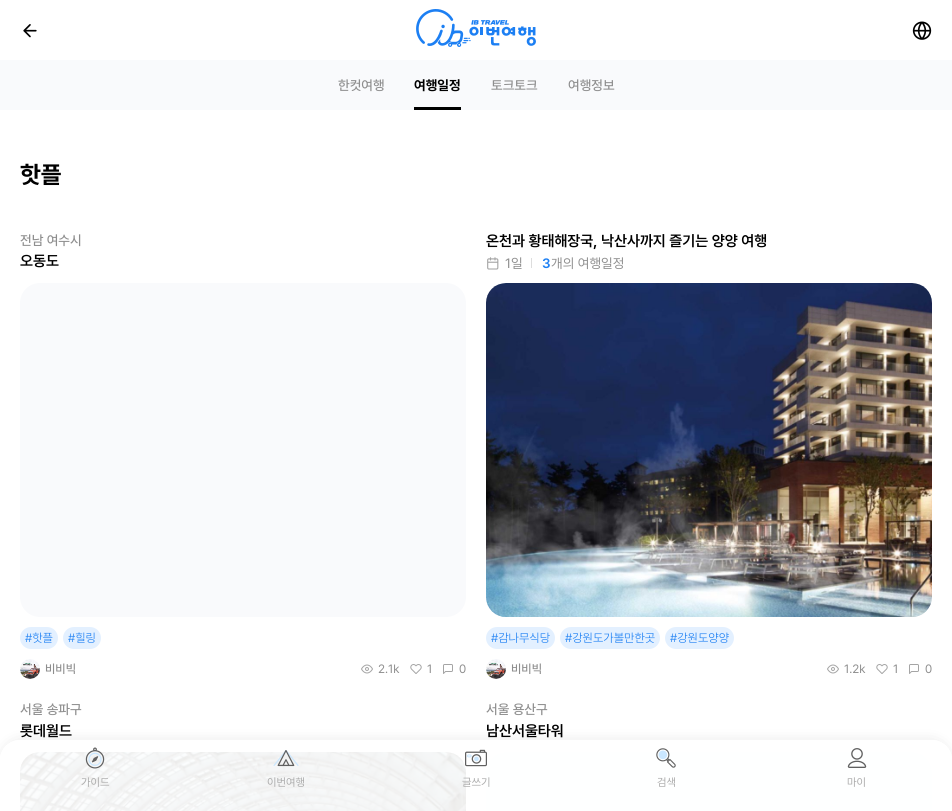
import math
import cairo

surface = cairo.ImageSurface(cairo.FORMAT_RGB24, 952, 811)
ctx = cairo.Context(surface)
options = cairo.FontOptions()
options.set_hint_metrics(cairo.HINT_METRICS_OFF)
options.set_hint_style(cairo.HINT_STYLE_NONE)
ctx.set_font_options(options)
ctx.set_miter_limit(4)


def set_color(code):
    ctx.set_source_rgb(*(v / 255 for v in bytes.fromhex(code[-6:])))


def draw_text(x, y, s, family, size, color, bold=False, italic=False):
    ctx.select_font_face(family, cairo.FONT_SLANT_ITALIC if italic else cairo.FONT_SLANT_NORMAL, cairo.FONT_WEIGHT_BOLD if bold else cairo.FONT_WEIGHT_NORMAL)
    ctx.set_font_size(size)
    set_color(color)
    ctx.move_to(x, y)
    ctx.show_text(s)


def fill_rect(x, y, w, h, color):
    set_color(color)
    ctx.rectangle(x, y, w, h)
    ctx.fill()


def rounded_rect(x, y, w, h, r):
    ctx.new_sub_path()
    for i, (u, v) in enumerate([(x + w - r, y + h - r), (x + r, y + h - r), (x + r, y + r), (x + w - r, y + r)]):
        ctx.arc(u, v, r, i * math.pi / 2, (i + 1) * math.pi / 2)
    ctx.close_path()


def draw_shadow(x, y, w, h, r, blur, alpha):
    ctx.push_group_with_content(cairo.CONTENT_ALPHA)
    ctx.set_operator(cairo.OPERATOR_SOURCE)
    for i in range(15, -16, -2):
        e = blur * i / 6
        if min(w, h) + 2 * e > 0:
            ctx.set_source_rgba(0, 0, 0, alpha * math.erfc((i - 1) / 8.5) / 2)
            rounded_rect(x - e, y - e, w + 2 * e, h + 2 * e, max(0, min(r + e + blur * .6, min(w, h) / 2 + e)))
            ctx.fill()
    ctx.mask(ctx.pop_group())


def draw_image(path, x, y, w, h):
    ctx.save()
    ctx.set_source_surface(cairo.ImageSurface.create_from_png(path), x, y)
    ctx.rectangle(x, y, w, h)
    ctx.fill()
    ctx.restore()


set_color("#ffffff")
ctx.paint()
draw_image("assets/img1.png", 23, 24, 14, 14)
draw_image("assets/img2.png", 416, 9, 120, 38)
draw_image("assets/img3.png", 912, 21, 20, 19)
fill_rect(0, 60, 952, 50, "#f9fafc")
draw_text(338, 90, "한컷여행", "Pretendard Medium", 13.5, "#8e8e8e")
fill_rect(414, 107, 47, 3, "#000000")
draw_text(414, 90, "여행일정", "Pretendard", 13.5, "#000000", bold=True)
draw_text(491, 90, "토크토크", "Pretendard Medium", 13.5, "#8e8e8e")
draw_text(568, 90, "여행정보", "Pretendard Medium", 13.5, "#8e8e8e")
draw_text(20, 183, "핫플", "Pretendard", 24, "#000000", bold=True)
draw_text(20, 245, "전남 여수시", "Pretendard Medium", 13.5, "#8e8e8e")
draw_text(20, 266, "오동도", "Pretendard SemiBold", 15, "#000000")
set_color("#f9fafc")
rounded_rect(20, 283, 446, 334, 20)
ctx.fill()
set_color("#e3f0ff")
rounded_rect(20, 627, 38, 22, 11)
ctx.fill()
draw_text(25, 642, "#핫플", "Pretendard Light", 12, "#1c7ff3")
set_color("#e3f0ff")
rounded_rect(63, 627, 38, 22, 11)
ctx.fill()
draw_text(68, 642, "#힐링", "Pretendard Light", 12, "#1c7ff3")
draw_image("assets/img4.png", 20, 659, 20, 20)
draw_text(45, 673, "비비빅", "Pretendard Medium", 12, "#8e8e8e")
draw_image("assets/img5.png", 361, 664, 12, 10)
draw_text(378, 673, "2.1k", "Pretendard", 12, "#8e8e8e")
draw_image("assets/img6.png", 410, 664, 12, 10)
draw_text(427, 673, "1", "Pretendard", 12, "#8e8e8e")
draw_image("assets/img7.png", 443, 664, 10, 10)
draw_text(459, 673, "0", "Pretendard", 12, "#8e8e8e")
draw_text(486, 246, "온천과 황태해장국, 낙산사까지 즐기는 양양 여행", "Pretendard SemiBold", 15, "#000000")
draw_image("assets/img8.png", 487, 257, 12, 13)
draw_text(505, 268, "1일", "Pretendard", 13.5, "#8e8e8e")
fill_rect(531, 258, 1, 10, "#dddddd")
draw_text(542, 268, "3", "Pretendard SemiBold", 13.5, "#1c7ff3")
draw_text(551, 268, "개의 여행일정", "Pretendard", 13.5, "#8e8e8e")
set_color("#f9fafc")
rounded_rect(486, 283, 446, 334, 20)
ctx.fill()
draw_image("assets/img9.png", 486, 283, 446, 334)
set_color("#e3f0ff")
rounded_rect(486, 627, 69, 22, 11)
ctx.fill()
draw_text(491, 642, "#감나무식당", "Pretendard Light", 12, "#1c7ff3")
set_color("#e3f0ff")
rounded_rect(560, 627, 100, 22, 11)
ctx.fill()
draw_text(565, 642, "#강원도가볼만한곳", "Pretendard Light", 12, "#1c7ff3")
set_color("#e3f0ff")
rounded_rect(665, 627, 69, 22, 11)
ctx.fill()
draw_text(670, 642, "#강원도양양", "Pretendard Light", 12, "#1c7ff3")
draw_image("assets/img4.png", 486, 659, 20, 20)
draw_text(511, 673, "비비빅", "Pretendard Medium", 12, "#8e8e8e")
draw_image("assets/img5.png", 827, 664, 12, 10)
draw_text(844, 673, "1.2k", "Pretendard", 12, "#8e8e8e")
draw_image("assets/img6.png", 876, 664, 12, 10)
draw_text(893, 673, "1", "Pretendard", 12, "#8e8e8e")
draw_image("assets/img7.png", 909, 664, 10, 10)
draw_text(925, 673, "0", "Pretendard", 12, "#8e8e8e")
draw_text(20, 714, "서울 송파구", "Pretendard Medium", 13.5, "#8e8e8e")
draw_text(20, 736, "롯데월드", "Pretendard SemiBold", 15, "#000000")
set_color("#f9fafc")
rounded_rect(20, 752, 446, 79, 20)
ctx.fill()
draw_image("assets/img10.png", 20, 752, 446, 59)
draw_text(486, 714, "서울 용산구", "Pretendard Medium", 13.5, "#8e8e8e")
draw_text(486, 736, "남산서울타워", "Pretendard SemiBold", 15, "#000000")
set_color("#f9fafc")
rounded_rect(486, 752, 446, 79, 20)
ctx.fill()
ctx.save()
ctx.set_fill_rule(cairo.FILL_RULE_EVEN_ODD)
ctx.new_path()
ctx.move_to(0, 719)
ctx.line_to(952, 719)
ctx.line_to(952, 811)
ctx.line_to(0, 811)
ctx.close_path()
ctx.move_to(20, 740)
ctx.line_to(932, 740)
ctx.curve_to(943, 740, 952, 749, 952, 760)
ctx.line_to(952, 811)
ctx.line_to(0, 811)
ctx.line_to(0, 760)
ctx.curve_to(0, 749, 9, 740, 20, 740)
ctx.close_path()
ctx.clip()
set_color("#000000")
draw_shadow(6, 744, 940, 59, 14, 8, 0.15)
ctx.restore()
ctx.set_source_rgba(1, 1, 1, 0.9)
ctx.new_path()
ctx.move_to(20, 740)
ctx.line_to(932, 740)
ctx.curve_to(943, 740, 952, 749, 952, 760)
ctx.line_to(952, 811)
ctx.line_to(0, 811)
ctx.line_to(0, 760)
ctx.curve_to(0, 749, 9, 740, 20, 740)
ctx.close_path()
ctx.fill()
draw_image("assets/img11.png", 85, 747, 20, 22)
draw_text(81, 786, "가이드", "Pretendard", 11, "#aaaaaa")
draw_image("assets/img12.png", 273, 750, 26, 17)
draw_text(267, 786, "이번여행", "Pretendard", 11, "#aaaaaa")
draw_image("assets/img13.png", 465, 749, 22, 18)
draw_text(462, 786, "글쓰기", "Pretendard", 11, "#aaaaaa")
draw_image("assets/img14.png", 656, 748, 20, 20)
draw_text(657, 786, "검색", "Pretendard", 11, "#aaaaaa")
draw_image("assets/img15.png", 847, 748, 20, 20)
draw_text(847, 786, "마이", "Pretendard", 11, "#aaaaaa")
surface.write_to_png("output.png")
